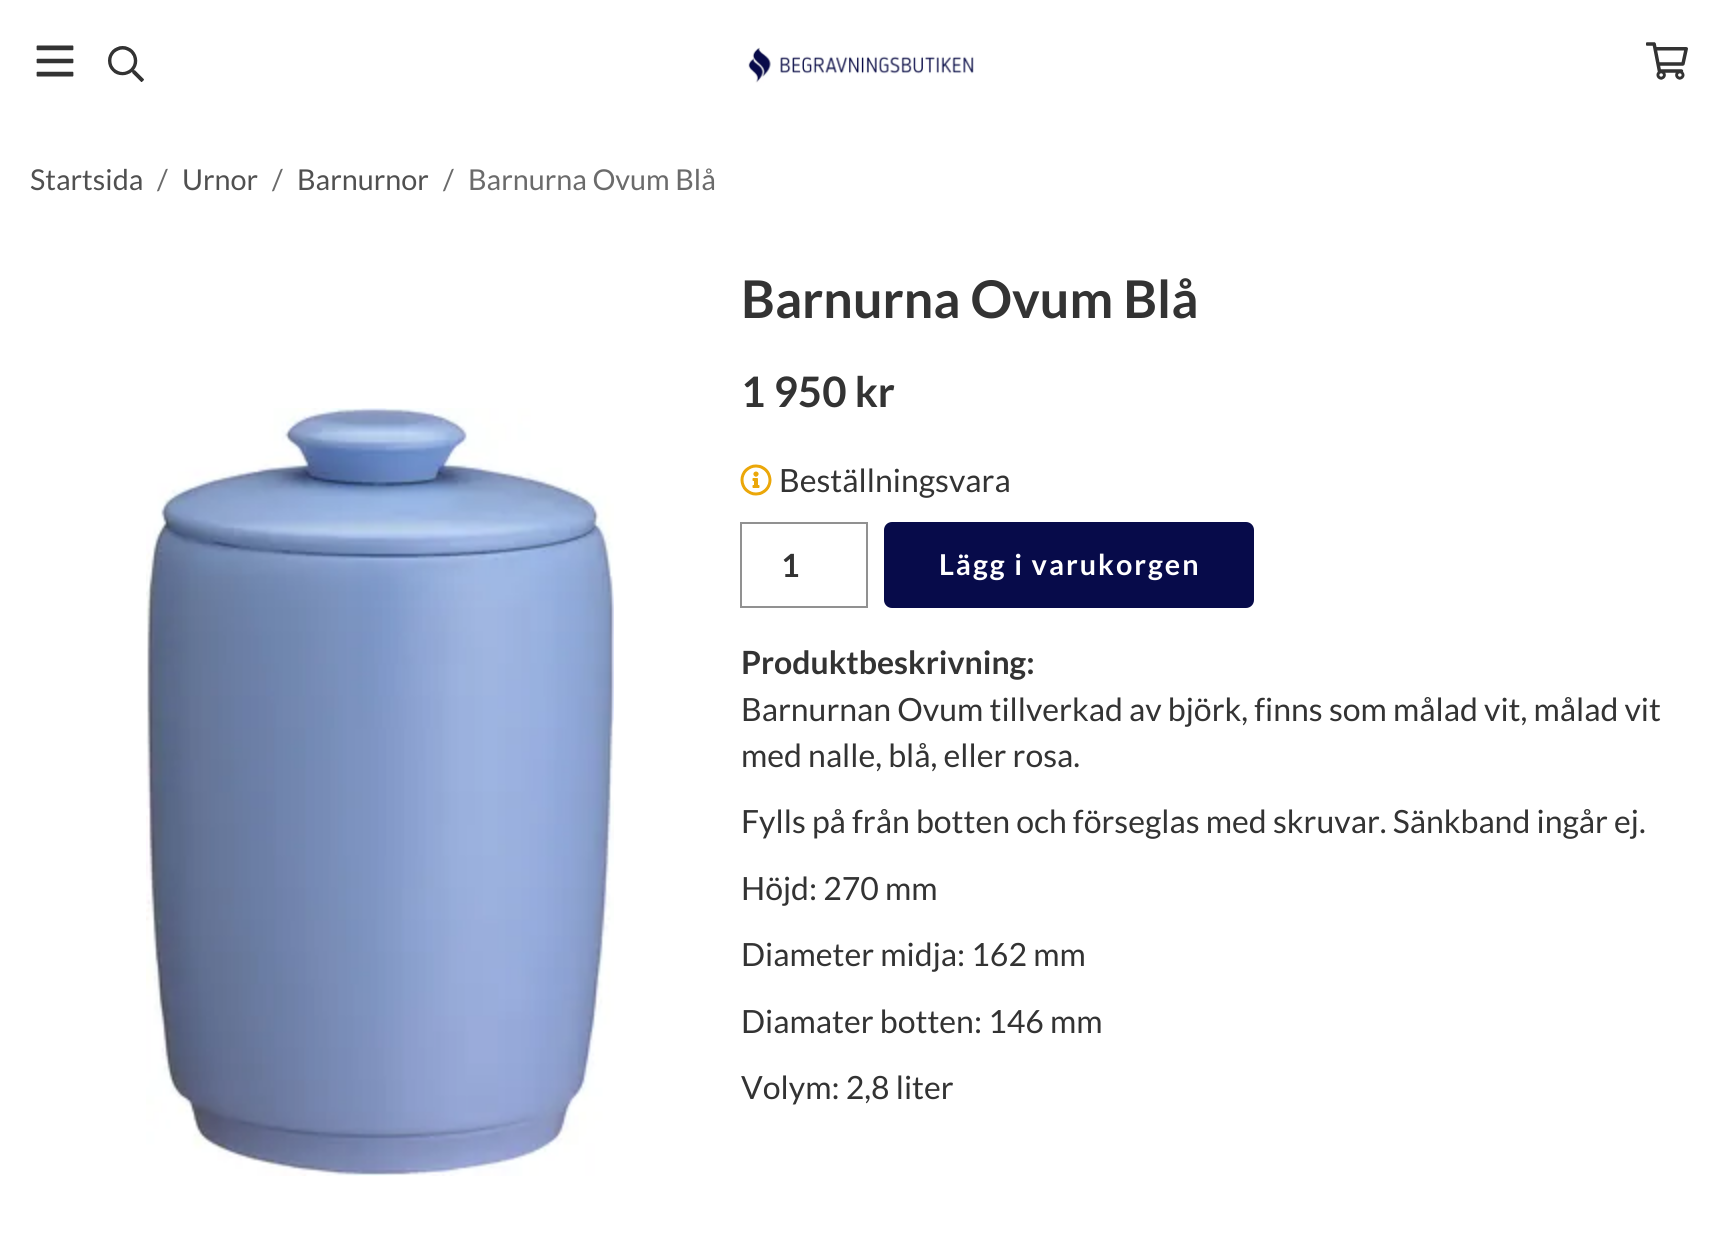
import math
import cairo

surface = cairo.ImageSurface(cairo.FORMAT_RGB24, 1722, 1257)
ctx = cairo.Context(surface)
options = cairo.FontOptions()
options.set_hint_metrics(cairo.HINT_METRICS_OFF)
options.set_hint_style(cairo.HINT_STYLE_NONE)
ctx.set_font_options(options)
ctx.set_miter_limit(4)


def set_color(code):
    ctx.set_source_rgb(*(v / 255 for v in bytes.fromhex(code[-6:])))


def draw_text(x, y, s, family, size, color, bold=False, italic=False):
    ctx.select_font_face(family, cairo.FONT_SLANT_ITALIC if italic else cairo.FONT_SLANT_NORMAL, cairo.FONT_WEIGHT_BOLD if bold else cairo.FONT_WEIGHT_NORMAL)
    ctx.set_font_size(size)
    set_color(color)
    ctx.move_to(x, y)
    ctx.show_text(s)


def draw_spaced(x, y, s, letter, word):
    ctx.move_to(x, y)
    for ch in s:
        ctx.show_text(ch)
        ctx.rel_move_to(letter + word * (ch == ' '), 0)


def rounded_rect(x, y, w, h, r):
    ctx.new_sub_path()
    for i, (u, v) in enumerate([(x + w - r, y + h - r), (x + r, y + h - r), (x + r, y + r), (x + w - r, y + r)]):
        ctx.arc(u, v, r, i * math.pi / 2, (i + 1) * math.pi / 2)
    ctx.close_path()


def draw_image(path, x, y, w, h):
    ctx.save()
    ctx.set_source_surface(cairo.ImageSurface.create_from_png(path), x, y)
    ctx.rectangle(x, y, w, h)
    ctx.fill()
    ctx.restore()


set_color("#ffffff")
ctx.paint()
draw_image("assets/img1.png", 36, 45, 38, 32)
draw_image("assets/img2.png", 108, 46, 36, 36)
draw_image("assets/img3.png", 748, 47, 226, 36)
draw_image("assets/img4.png", 1646, 42, 42, 38)
draw_text(30, 190, "Startsida", "Lato", 28.75, "#505050")
draw_text(157, 190, "/", "Lato", 28.75, "#6b6b6b")
draw_text(182, 190, "Urnor", "Lato", 28.75, "#505050")
draw_text(272, 190, "/", "Lato", 28.75, "#6b6b6b")
draw_text(297, 190, "Barnurnor", "Lato", 28.75, "#505050")
draw_text(443, 190, "/", "Lato", 28.75, "#6b6b6b")
draw_text(468, 190, "Barnurna Ovum Blå", "Lato", 28.75, "#6b6b6b")
draw_image("assets/img5.png", 146, 408, 468, 768)
draw_text(741, 318, "Barnurna Ovum Blå", "Lato", 52, "#333333", bold=True)
draw_text(741, 407, "1 950 kr", "Lato", 42, "#333333", bold=True)
draw_image("assets/img6.png", 740, 464, 32, 32)
draw_text(779, 492, "Beställningsvara", "Lato", 32, "#333333")
ctx.rectangle(741, 523, 126, 84)
set_color("#919191")
ctx.stroke()
draw_text(781, 577, "1", "Lato", 32, "#333333", bold=True)
set_color("#070b4a")
rounded_rect(885, 523, 368, 84, 7)
ctx.fill_preserve()
ctx.stroke()
ctx.set_font_size(28.75)
set_color("#ffffff")
draw_spaced(939, 575, "Lägg i varukorgen", 2, 0)
draw_text(741, 674, "Produktbeskrivning:", "Lato", 32, "#333333", bold=True)
draw_text(741, 721, "Barnurnan Ovum tillverkad av björk, finns som målad vit, målad vit", "Lato", 32, "#333333")
draw_text(741, 767, "med nalle, blå, eller rosa.", "Lato", 32, "#333333")
draw_text(741, 833, "Fylls på från botten och förseglas med skruvar. Sänkband ingår ej.", "Lato", 32, "#333333")
draw_text(741, 900, "Höjd: 270 mm", "Lato", 32, "#333333")
draw_text(741, 966, "Diameter midja: 162 mm", "Lato", 32, "#333333")
draw_text(741, 1033, "Diamater botten: 146 mm", "Lato", 32, "#333333")
draw_text(741, 1099, "Volym: 2,8 liter", "Lato", 32, "#333333")
surface.write_to_png("output.png")
